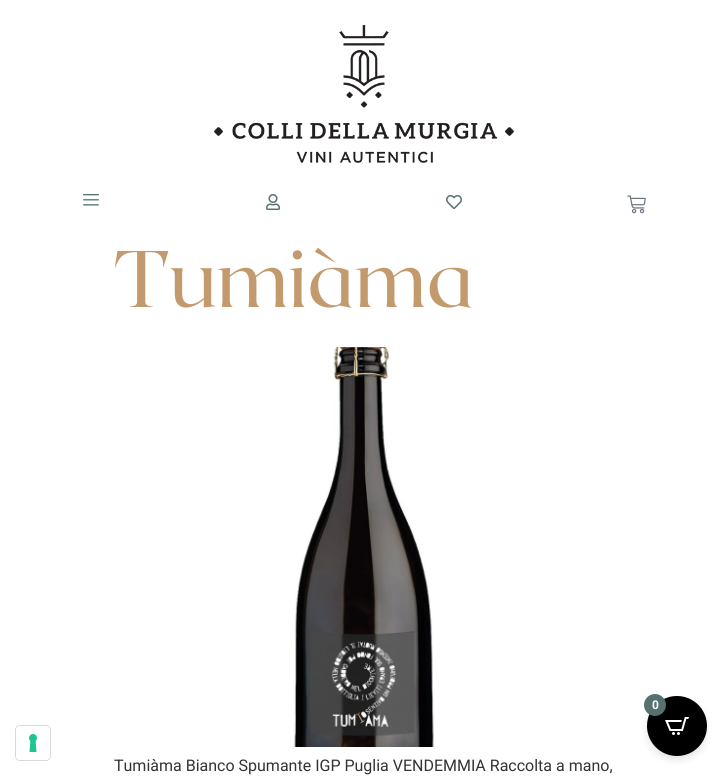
import math
import cairo

surface = cairo.ImageSurface(cairo.FORMAT_RGB24, 727, 776)
ctx = cairo.Context(surface)
options = cairo.FontOptions()
options.set_hint_metrics(cairo.HINT_METRICS_OFF)
options.set_hint_style(cairo.HINT_STYLE_NONE)
ctx.set_font_options(options)
ctx.set_miter_limit(4)


def set_color(code):
    ctx.set_source_rgb(*(v / 255 for v in bytes.fromhex(code[-6:])))


def draw_text(x, y, s, family, size, color, bold=False, italic=False):
    ctx.select_font_face(family, cairo.FONT_SLANT_ITALIC if italic else cairo.FONT_SLANT_NORMAL, cairo.FONT_WEIGHT_BOLD if bold else cairo.FONT_WEIGHT_NORMAL)
    ctx.set_font_size(size)
    set_color(color)
    ctx.move_to(x, y)
    ctx.show_text(s)


def rounded_rect(x, y, w, h, r):
    ctx.new_sub_path()
    for i, (u, v) in enumerate([(x + w - r, y + h - r), (x + r, y + h - r), (x + r, y + r), (x + w - r, y + r)]):
        ctx.arc(u, v, r, i * math.pi / 2, (i + 1) * math.pi / 2)
    ctx.close_path()


def draw_shadow(x, y, w, h, r, blur, alpha):
    ctx.push_group_with_content(cairo.CONTENT_ALPHA)
    ctx.set_operator(cairo.OPERATOR_SOURCE)
    for i in range(15, -16, -2):
        e = blur * i / 6
        if min(w, h) + 2 * e > 0:
            ctx.set_source_rgba(0, 0, 0, alpha * math.erfc((i - 1) / 8.5) / 2)
            rounded_rect(x - e, y - e, w + 2 * e, h + 2 * e, max(0, min(r + e + blur * .6, min(w, h) / 2 + e)))
            ctx.fill()
    ctx.mask(ctx.pop_group())


def draw_image(path, x, y, w, h):
    ctx.save()
    ctx.set_source_surface(cairo.ImageSurface.create_from_png(path), x, y)
    ctx.rectangle(x, y, w, h)
    ctx.fill()
    ctx.restore()


set_color("#ffffff")
ctx.paint()
draw_image("assets/img1.png", 214, 25, 300, 138)
draw_image("assets/img2.png", 83, 194, 16, 12)
draw_image("assets/img3.png", 266, 194, 14, 16)
draw_image("assets/img4.png", 446, 195, 16, 14)
draw_image("assets/img5.png", 627, 195, 19, 19)
draw_text(114, 307, "Tumiàma", "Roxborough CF", 80, "#c39a6d")
draw_image("assets/img6.png", 294, 347, 140, 400)
draw_text(114, 771, "Tumiàma Bianco Spumante IGP Puglia VENDEMMIA Raccolta a mano,", "Roboto", 16, "#333333")
set_color("#000000")
draw_shadow(647, 700, 60, 60, 30, 3.5, 0.1)
set_color("#000000")
ctx.arc(677, 726, 30, 0, 2 * math.pi)
ctx.fill()
set_color("#557271")
ctx.arc(655, 705, 11, 0, 2 * math.pi)
ctx.fill()
draw_text(652, 709, "0", "Roboto", 12, "#ffffff", bold=True)
draw_image("assets/img7.png", 665, 717, 24, 18)
rounded_rect(15.5, 725.5, 35, 35, 4.5)
set_color("#d9d9d9")
ctx.set_line_width(1)
ctx.stroke()
set_color("#ffffff")
rounded_rect(16, 726, 34, 34, 4)
ctx.fill()
draw_image("assets/img8.png", 29, 734, 8, 18)
surface.write_to_png("output.png")
